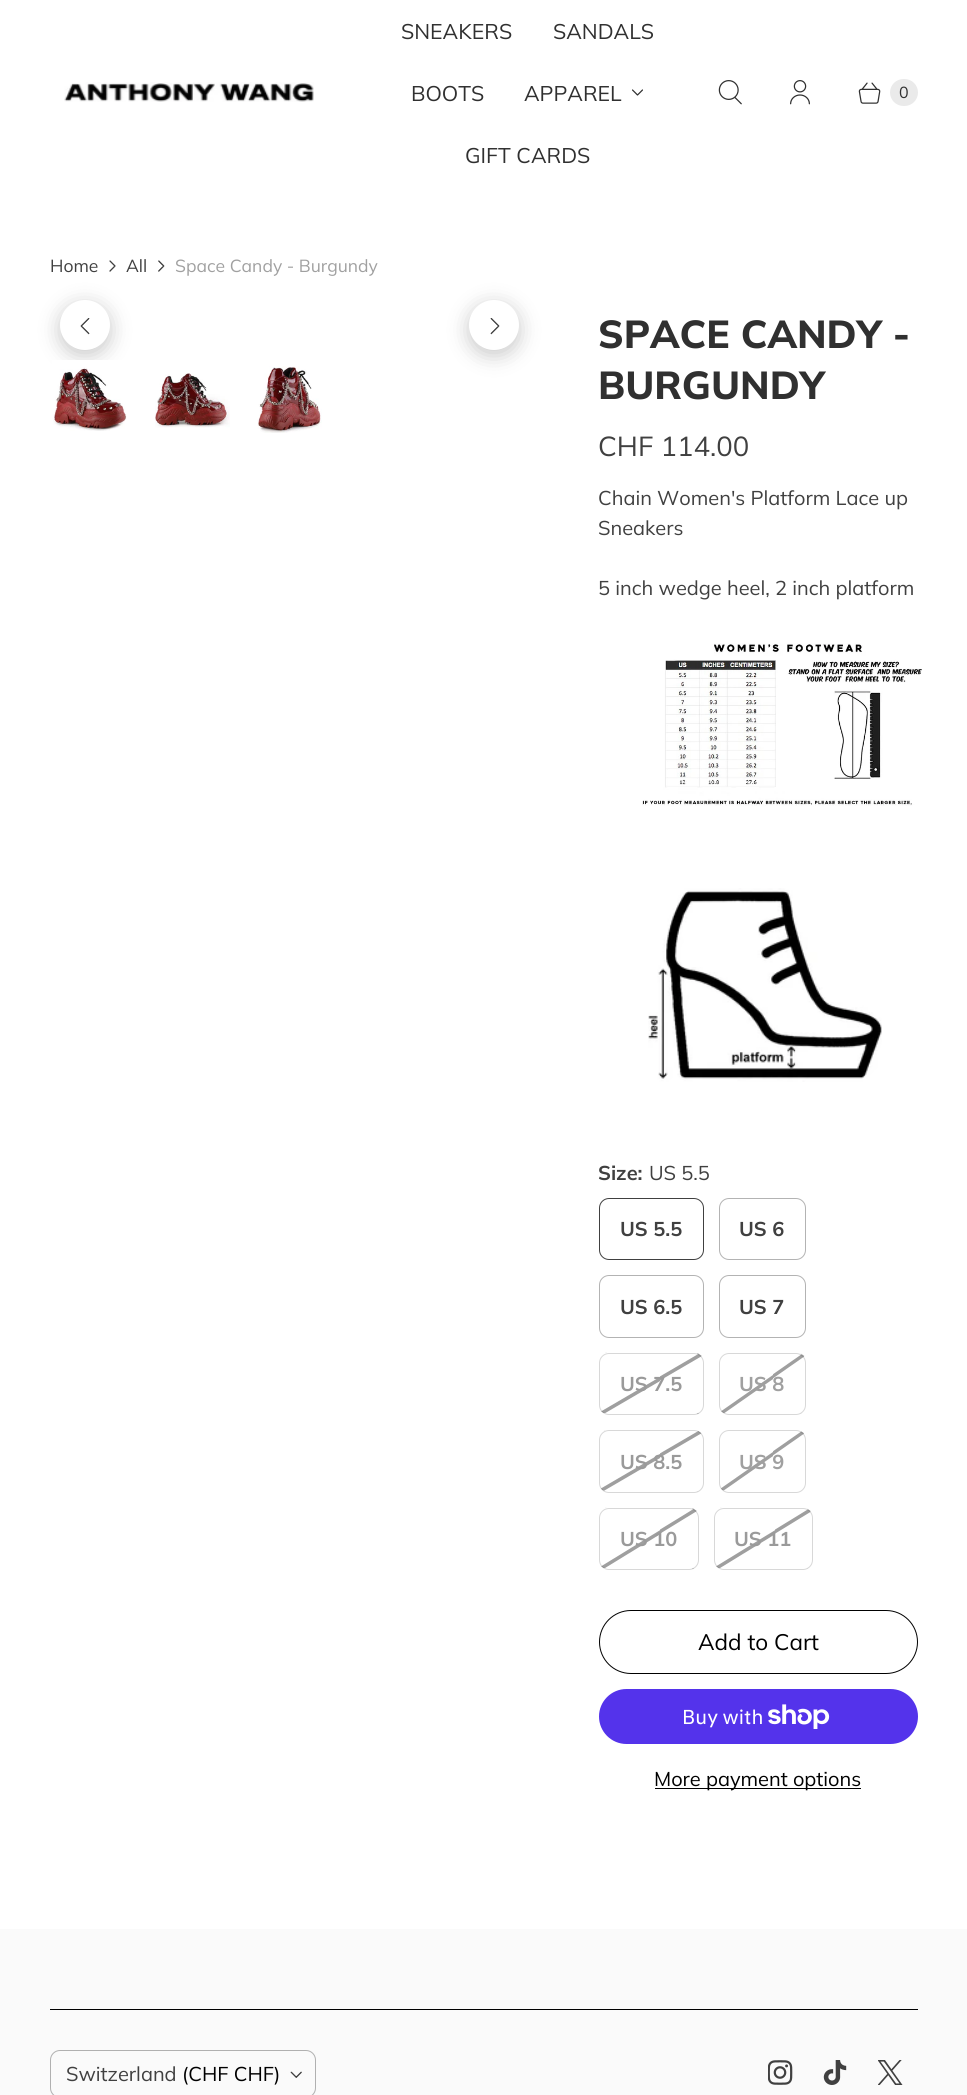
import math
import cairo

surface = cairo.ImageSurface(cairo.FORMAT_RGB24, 967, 2095)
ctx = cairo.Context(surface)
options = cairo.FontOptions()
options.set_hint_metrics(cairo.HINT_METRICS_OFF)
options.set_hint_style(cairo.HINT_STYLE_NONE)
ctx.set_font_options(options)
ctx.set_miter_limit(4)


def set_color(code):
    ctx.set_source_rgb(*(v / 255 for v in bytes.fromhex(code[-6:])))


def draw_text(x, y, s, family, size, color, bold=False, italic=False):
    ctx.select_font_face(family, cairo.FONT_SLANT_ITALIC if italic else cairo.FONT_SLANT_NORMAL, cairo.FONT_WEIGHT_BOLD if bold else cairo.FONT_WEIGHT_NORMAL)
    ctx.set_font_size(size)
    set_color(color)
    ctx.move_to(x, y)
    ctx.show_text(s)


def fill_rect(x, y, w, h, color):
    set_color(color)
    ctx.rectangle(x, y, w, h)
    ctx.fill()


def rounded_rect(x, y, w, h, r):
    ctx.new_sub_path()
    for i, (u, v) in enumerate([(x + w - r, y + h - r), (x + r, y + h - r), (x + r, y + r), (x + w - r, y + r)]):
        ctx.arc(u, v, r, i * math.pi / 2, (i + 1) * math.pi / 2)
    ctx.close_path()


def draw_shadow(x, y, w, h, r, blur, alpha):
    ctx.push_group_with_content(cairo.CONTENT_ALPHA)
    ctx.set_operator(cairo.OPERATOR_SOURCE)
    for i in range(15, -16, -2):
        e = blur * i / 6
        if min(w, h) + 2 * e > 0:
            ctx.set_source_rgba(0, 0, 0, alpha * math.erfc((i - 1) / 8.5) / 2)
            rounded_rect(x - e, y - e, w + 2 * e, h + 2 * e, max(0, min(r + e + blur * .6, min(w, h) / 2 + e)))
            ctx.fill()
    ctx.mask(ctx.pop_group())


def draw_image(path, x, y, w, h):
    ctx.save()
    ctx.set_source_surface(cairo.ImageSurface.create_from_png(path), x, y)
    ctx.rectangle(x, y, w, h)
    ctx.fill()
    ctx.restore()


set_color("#ffffff")
ctx.paint()
draw_image("assets/img1.png", 64, 82, 250, 20)
draw_text(401, 39, "SNEAKERS", "Muli", 21.25, "#303030")
draw_text(553, 39, "SANDALS", "Muli", 21.25, "#303030")
draw_text(411, 101, "BOOTS", "Muli", 21.25, "#303030")
draw_text(524, 101, "APPAREL", "Muli", 21.25, "#303030")
draw_image("assets/img2.png", 632, 89, 11, 7)
draw_text(465, 163, "GIFT CARDS", "Muli", 21.25, "#303030")
draw_image("assets/img3.png", 718, 80, 24, 25)
draw_image("assets/img4.png", 790, 80, 20, 25)
draw_image("assets/img5.png", 858, 82, 23, 22)
set_color("#eaeaea")
rounded_rect(890, 79, 28, 27, 13.5)
ctx.fill()
draw_text(899, 98, "0", "Muli", 16, "#303030")
draw_text(50, 272, "Home", "Muli", 17.5, "#404040")
draw_image("assets/img6.png", 109, 260, 7, 12)
draw_text(126, 272, "All", "Muli", 17.5, "#404040")
draw_image("assets/img7.png", 158, 260, 7, 12)
draw_text(175, 272, "Space Candy - Burgundy", "Muli", 17.5, "#a0a0a0")
set_color("#000000")
draw_shadow(59, 304, 52, 52, 26, 10, 0.2)
set_color("#ffffff")
ctx.arc(85, 325, 25, 0, 2 * math.pi)
ctx.fill()
draw_image("assets/img8.png", 80, 318, 10, 17)
set_color("#000000")
draw_shadow(468, 304, 52, 52, 26, 10, 0.2)
set_color("#ffffff")
ctx.arc(494, 325, 25, 0, 2 * math.pi)
ctx.fill()
draw_image("assets/img9.png", 490, 318, 10, 17)
draw_image("assets/img10.png", 52, 360, 75, 71)
draw_image("assets/img11.png", 155, 373, 75, 55)
draw_image("assets/img12.png", 257, 366, 65, 67)
draw_text(598, 348, "SPACE CANDY -", "Muli ExtraBold", 39, "#303030")
draw_text(598, 399, "BURGUNDY", "Muli ExtraBold", 39, "#303030")
draw_text(598, 456, "CHF 114.00", "Muli", 27.5, "#404040")
draw_text(598, 505, "Chain Women's Platform Lace up", "Muli", 20, "#404040")
draw_text(598, 535, "Sneakers", "Muli", 20, "#404040")
draw_text(598, 595, "5 inch wedge heel, 2 inch platform", "Muli", 20, "#404040")
draw_image("assets/img13.png", 642, 643, 280, 163)
draw_image("assets/img14.png", 648, 888, 234, 194)
draw_text(598, 1180, "Size:", "Muli", 20, "#404040", bold=True)
draw_text(649, 1180, "US 5.5", "Muli", 20, "#404040")
rounded_rect(599.5, 1198.5, 104, 61, 9.5)
ctx.set_line_width(1)
ctx.stroke()
draw_text(620, 1236, "US 5.5", "Muli", 20, "#404040", bold=True)
rounded_rect(719.5, 1198.5, 86, 61, 9.5)
set_color("#b3b3b3")
ctx.stroke()
draw_text(739, 1236, "US 6", "Muli", 20, "#404040", bold=True)
rounded_rect(599.5, 1275.5, 104, 62, 9.5)
set_color("#b3b3b3")
ctx.stroke()
draw_text(620, 1314, "US 6.5", "Muli", 20, "#404040", bold=True)
rounded_rect(719.5, 1275.5, 86, 62, 9.5)
set_color("#b3b3b3")
ctx.stroke()
draw_text(739, 1314, "US 7", "Muli", 20, "#404040", bold=True)
draw_image("assets/img15.png", 601, 1352, 101, 62)
rounded_rect(599.5, 1353.5, 104, 61, 9.5)
ctx.set_source_rgba(0.251, 0.251, 0.251, 0.2)
ctx.stroke()
draw_text(620, 1391, "US 7.5", "Muli", 20, "#9a9a9a", bold=True)
draw_image("assets/img16.png", 721, 1353, 84, 61)
rounded_rect(719.5, 1353.5, 86, 61, 9.5)
ctx.set_source_rgba(0.251, 0.251, 0.251, 0.2)
ctx.stroke()
draw_text(739, 1391, "US 8", "Muli", 20, "#a0a0a0", bold=True)
draw_image("assets/img17.png", 601, 1430, 101, 62)
rounded_rect(599.5, 1430.5, 104, 62, 9.5)
ctx.set_source_rgba(0.251, 0.251, 0.251, 0.2)
ctx.stroke()
draw_text(620, 1469, "US 8.5", "Muli", 20, "#9a9a9a", bold=True)
draw_image("assets/img18.png", 721, 1431, 83, 60)
rounded_rect(719.5, 1430.5, 86, 62, 9.5)
ctx.set_source_rgba(0.251, 0.251, 0.251, 0.2)
ctx.stroke()
draw_text(739, 1469, "US 9", "Muli", 20, "#a0a0a0", bold=True)
draw_image("assets/img19.png", 601, 1507, 96, 62)
rounded_rect(599.5, 1508.5, 99, 61, 9.5)
ctx.set_source_rgba(0.251, 0.251, 0.251, 0.2)
ctx.stroke()
draw_text(620, 1546, "US 10", "Muli", 20, "#9a9a9a", bold=True)
draw_image("assets/img20.png", 716, 1507, 95, 62)
rounded_rect(714.5, 1508.5, 98, 61, 9.5)
ctx.set_source_rgba(0.251, 0.251, 0.251, 0.2)
ctx.stroke()
draw_text(734, 1546, "US 11", "Muli", 20, "#9a9a9a", bold=True)
rounded_rect(599.5, 1610.5, 318, 63, 31.5)
set_color("#000000")
ctx.stroke()
draw_text(698, 1650, "Add to Cart", "Muli", 22.5, "#000000")
set_color("#5433eb")
rounded_rect(599, 1689, 319, 55, 27.5)
ctx.fill()
draw_text(682, 1724, "Buy with", "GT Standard", 20, "#ffffff")
draw_image("assets/img21.png", 768, 1704, 62, 25)
fill_rect(655, 1788, 206, 1, "#000000")
draw_text(654, 1786, "More payment options", "Muli", 20, "#000000")
fill_rect(0, 1929, 967, 166, "#fafafa")
fill_rect(50, 2009, 868, 1, "#000000")
rounded_rect(50.5, 2050.5, 265, 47, 9.5)
set_color("#b0b0b0")
ctx.stroke()
draw_text(66, 2081, "Switzerland", "Muli", 20, "#404040")
draw_text(182, 2081, "(CHF CHF)", "Muli", 20, "#000000")
draw_image("assets/img22.png", 290, 2071, 12, 7)
draw_image("assets/img23.png", 768, 2060, 25, 25)
draw_image("assets/img24.png", 823, 2060, 24, 25)
draw_image("assets/img25.png", 878, 2060, 25, 25)
surface.write_to_png("output.png")
